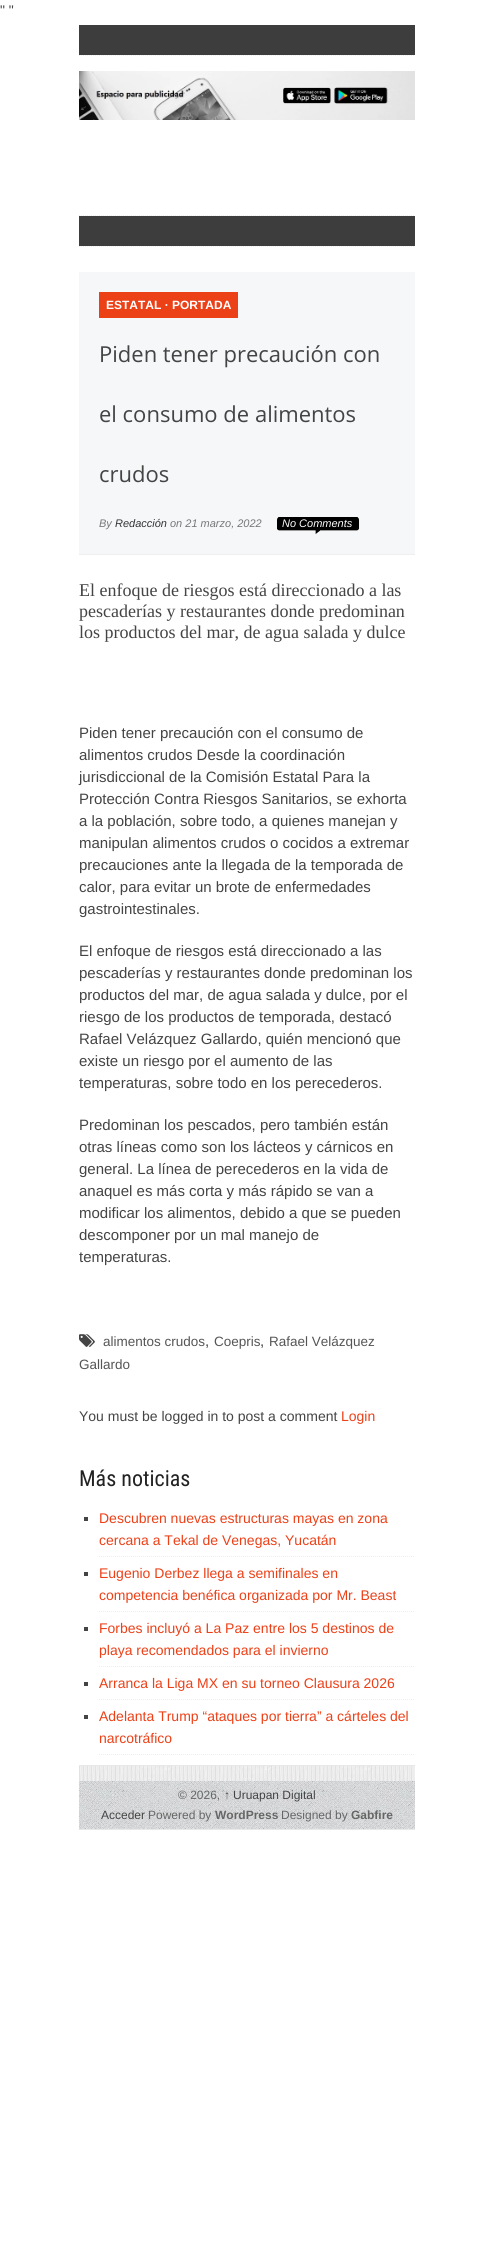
import math
import cairo

surface = cairo.ImageSurface(cairo.FORMAT_RGB24, 494, 2267)
ctx = cairo.Context(surface)
options = cairo.FontOptions()
options.set_hint_metrics(cairo.HINT_METRICS_OFF)
options.set_hint_style(cairo.HINT_STYLE_NONE)
ctx.set_font_options(options)
ctx.set_miter_limit(4)


def set_color(code):
    ctx.set_source_rgb(*(v / 255 for v in bytes.fromhex(code[-6:])))


def draw_text(x, y, s, family, size, color, bold=False, italic=False):
    ctx.select_font_face(family, cairo.FONT_SLANT_ITALIC if italic else cairo.FONT_SLANT_NORMAL, cairo.FONT_WEIGHT_BOLD if bold else cairo.FONT_WEIGHT_NORMAL)
    ctx.set_font_size(size)
    set_color(color)
    ctx.move_to(x, y)
    ctx.show_text(s)


def fill_rect(x, y, w, h, color):
    set_color(color)
    ctx.rectangle(x, y, w, h)
    ctx.fill()


def draw_image(path, x, y, w, h):
    ctx.save()
    ctx.set_source_surface(cairo.ImageSurface.create_from_png(path), x, y)
    ctx.rectangle(x, y, w, h)
    ctx.fill()
    ctx.restore()


set_color("#ffffff")
ctx.paint()
draw_text(0, 15, "\" \"", "Liberation Sans", 14, "#444444")
ctx.new_path()
ctx.move_to(79, 55.5)
ctx.line_to(415, 55.5)
set_color("#efefef")
ctx.set_line_width(1)
ctx.set_dash([1, 1])
ctx.stroke()
fill_rect(79, 25, 336, 30, "#3d3d3d")
draw_image("assets/img1.png", 79, 71, 336, 49)
ctx.new_path()
ctx.move_to(79, 215.5)
ctx.line_to(415, 215.5)
set_color("#efefef")
ctx.stroke()
ctx.new_path()
ctx.move_to(79, 246.5)
ctx.line_to(415, 246.5)
ctx.stroke()
fill_rect(79, 216, 336, 30, "#3d3d3d")
fill_rect(79, 272, 336, 282, "#f5f7f9")
fill_rect(79, 554, 336, 1, "#efefef")
fill_rect(99, 292, 139, 26, "#ec4017")
draw_text(106, 309, "ESTATAL · PORTADA", "Liberation Sans", 12, "#ffffff", bold=True)
draw_text(99, 362, "Piden tener precaución con", "Open Sans", 22, "#444444")
draw_text(99, 422, "el consumo de alimentos", "Open Sans", 22, "#444444")
draw_text(99, 482, "crudos", "Open Sans", 22, "#444444")
draw_text(99, 527, "By", "Liberation Sans", 11, "#777777", italic=True)
draw_text(115, 527, "Redacción", "Liberation Sans", 11, "#333333", italic=True)
draw_text(170, 527, "on 21 marzo, 2022", "Liberation Sans", 11, "#777777", italic=True)
draw_image("assets/img2.png", 277, 517, 82, 17)
draw_text(282, 527, "No Comments", "Liberation Sans", 11, "#ffffff", italic=True)
draw_text(79, 596, "El enfoque de riesgos está direccionado a las", "Liberation Serif", 18, "#444444")
draw_text(79, 617, "pescaderías y restaurantes donde predominan", "Liberation Serif", 18, "#444444")
draw_text(79, 638, "los productos del mar, de agua salada y dulce", "Liberation Serif", 18, "#444444")
draw_text(79, 738, "Piden tener precaución con el consumo de", "Liberation Sans", 15, "#444444")
draw_text(79, 760, "alimentos crudos Desde la coordinación", "Liberation Sans", 15, "#444444")
draw_text(79, 782, "jurisdiccional de la Comisión Estatal Para la", "Liberation Sans", 15, "#444444")
draw_text(79, 804, "Protección Contra Riesgos Sanitarios, se exhorta", "Liberation Sans", 15, "#444444")
draw_text(79, 826, "a la población, sobre todo, a quienes manejan y", "Liberation Sans", 15, "#444444")
draw_text(79, 848, "manipulan alimentos crudos o cocidos a extremar", "Liberation Sans", 15, "#444444")
draw_text(79, 870, "precauciones ante la llegada de la temporada de", "Liberation Sans", 15, "#444444")
draw_text(79, 892, "calor, para evitar un brote de enfermedades", "Liberation Sans", 15, "#444444")
draw_text(79, 914, "gastrointestinales.", "Liberation Sans", 15, "#444444")
draw_text(79, 956, "El enfoque de riesgos está direccionado a las", "Liberation Sans", 15, "#444444")
draw_text(79, 978, "pescaderías y restaurantes donde predominan los", "Liberation Sans", 15, "#444444")
draw_text(79, 1000, "productos del mar, de agua salada y dulce, por el", "Liberation Sans", 15, "#444444")
draw_text(79, 1022, "riesgo de los productos de temporada, destacó", "Liberation Sans", 15, "#444444")
draw_text(79, 1044, "Rafael Velázquez Gallardo, quién mencionó que", "Liberation Sans", 15, "#444444")
draw_text(79, 1066, "existe un riesgo por el aumento de las", "Liberation Sans", 15, "#444444")
draw_text(79, 1088, "temperaturas, sobre todo en los perecederos.", "Liberation Sans", 15, "#444444")
draw_text(79, 1130, "Predominan los pescados, pero también están", "Liberation Sans", 15, "#444444")
draw_text(79, 1152, "otras líneas como son los lácteos y cárnicos en", "Liberation Sans", 15, "#444444")
draw_text(79, 1174, "general. La línea de perecederos en la vida de", "Liberation Sans", 15, "#444444")
draw_text(79, 1196, "anaquel es más corta y más rápido se van a", "Liberation Sans", 15, "#444444")
draw_text(79, 1218, "modificar los alimentos, debido a que se pueden", "Liberation Sans", 15, "#444444")
draw_text(79, 1240, "descomponer por un mal manejo de", "Liberation Sans", 15, "#444444")
draw_text(79, 1262, "temperaturas.", "Liberation Sans", 15, "#444444")
draw_image("assets/img3.png", 79, 1334, 16, 13)
draw_text(103, 1346, "alimentos crudos", "Liberation Sans", 13.5, "#555555")
draw_text(205, 1346, ",", "Liberation Sans", 15, "#444444")
draw_text(214, 1346, "Coepris", "Liberation Sans", 13.5, "#555555")
draw_text(260, 1346, ",", "Liberation Sans", 15, "#444444")
draw_text(269, 1346, "Rafael Velázquez", "Liberation Sans", 13.5, "#555555")
draw_text(79, 1369, "Gallardo", "Liberation Sans", 13.5, "#555555")
draw_text(79, 1421, "You must be logged in to post a comment", "Liberation Sans", 14, "#444444")
draw_text(341, 1421, "Login", "Liberation Sans", 14, "#ec4017")
draw_text(79, 1486, "Más noticias", "Roboto Condensed", 22, "#222222")
ctx.new_path()
ctx.move_to(99, 1556.5)
ctx.line_to(415, 1556.5)
set_color("#efefef")
ctx.stroke()
fill_rect(84, 1517, 4, 4, "#444444")
draw_text(99, 1523, "Descubren nuevas estructuras mayas en zona", "Liberation Sans", 14, "#ec4017")
draw_text(99, 1545, "cercana a Tekal de Venegas, Yucatán", "Liberation Sans", 14, "#ec4017")
ctx.new_path()
ctx.move_to(99, 1611.5)
ctx.line_to(415, 1611.5)
set_color("#efefef")
ctx.stroke()
fill_rect(84, 1572, 4, 4, "#444444")
draw_text(99, 1578, "Eugenio Derbez llega a semifinales en", "Liberation Sans", 14, "#ec4017")
draw_text(99, 1600, "competencia benéfica organizada por Mr. Beast", "Liberation Sans", 14, "#ec4017")
ctx.new_path()
ctx.move_to(99, 1666.5)
ctx.line_to(415, 1666.5)
set_color("#efefef")
ctx.stroke()
fill_rect(84, 1627, 4, 4, "#444444")
draw_text(99, 1633, "Forbes incluyó a La Paz entre los 5 destinos de", "Liberation Sans", 14, "#ec4017")
draw_text(99, 1655, "playa recomendados para el invierno", "Liberation Sans", 14, "#ec4017")
ctx.new_path()
ctx.move_to(99, 1699.5)
ctx.line_to(415, 1699.5)
set_color("#efefef")
ctx.stroke()
fill_rect(84, 1682, 4, 4, "#444444")
draw_text(99, 1688, "Arranca la Liga MX en su torneo Clausura 2026", "Liberation Sans", 14, "#ec4017")
ctx.new_path()
ctx.move_to(99, 1754.5)
ctx.line_to(415, 1754.5)
set_color("#efefef")
ctx.stroke()
fill_rect(84, 1715, 4, 4, "#444444")
draw_text(99, 1721, "Adelanta Trump “ataques por tierra” a cárteles del", "Liberation Sans", 14, "#ec4017")
draw_text(99, 1743, "narcotráfico", "Liberation Sans", 14, "#ec4017")
fill_rect(412, 1766, 3, 15, "#eeeeee")
draw_image("assets/img4.png", 79, 1766, 333, 15)
fill_rect(79, 1765, 336, 1, "#e8e8e8")
draw_image("assets/img5.png", 79, 1781, 336, 48)
fill_rect(79, 1829, 336, 1, "#e8e8e8")
draw_text(178, 1799, "© 2026,", "Liberation Sans", 12, "#666666")
draw_text(224, 1799, "↑", "Liberation Sans", 12, "#444444", bold=True)
draw_text(233, 1799, "Uruapan Digital", "Liberation Sans", 12, "#444444")
draw_text(101, 1819, "Acceder", "Liberation Sans", 12, "#444444")
draw_text(148, 1819, "Powered by", "Liberation Sans", 12, "#666666")
draw_text(215, 1819, "WordPress", "Liberation Sans", 12, "#666666", bold=True)
draw_text(281, 1819, "Designed by", "Liberation Sans", 12, "#666666")
draw_text(351, 1819, "Gabfire", "Liberation Sans", 12, "#666666", bold=True)
surface.write_to_png("output.png")
